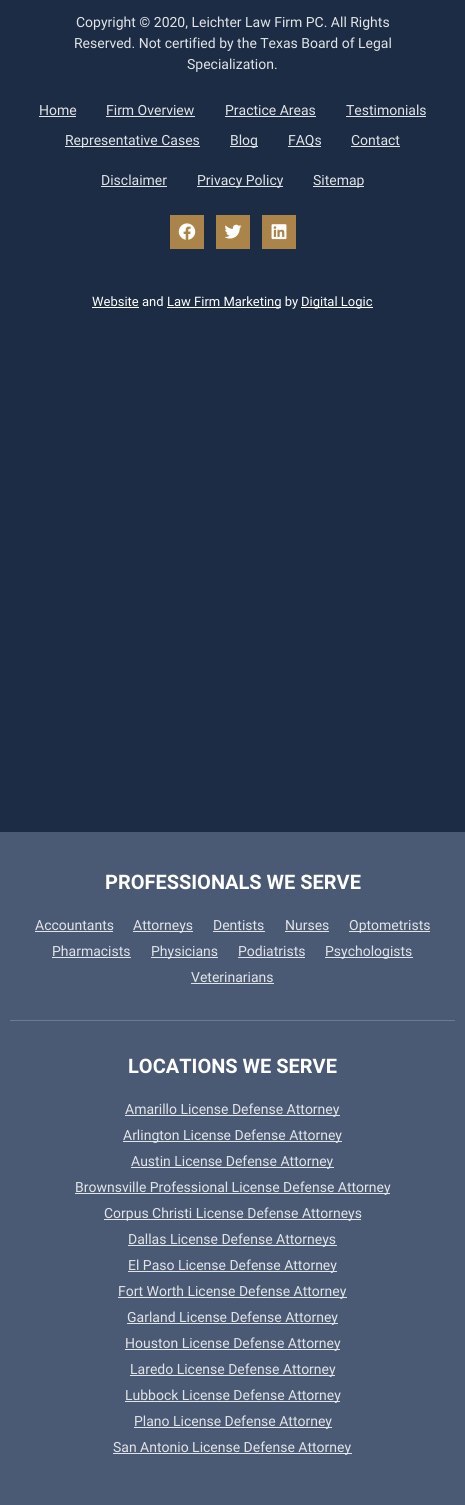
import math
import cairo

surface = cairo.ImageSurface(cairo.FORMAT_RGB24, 465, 1505)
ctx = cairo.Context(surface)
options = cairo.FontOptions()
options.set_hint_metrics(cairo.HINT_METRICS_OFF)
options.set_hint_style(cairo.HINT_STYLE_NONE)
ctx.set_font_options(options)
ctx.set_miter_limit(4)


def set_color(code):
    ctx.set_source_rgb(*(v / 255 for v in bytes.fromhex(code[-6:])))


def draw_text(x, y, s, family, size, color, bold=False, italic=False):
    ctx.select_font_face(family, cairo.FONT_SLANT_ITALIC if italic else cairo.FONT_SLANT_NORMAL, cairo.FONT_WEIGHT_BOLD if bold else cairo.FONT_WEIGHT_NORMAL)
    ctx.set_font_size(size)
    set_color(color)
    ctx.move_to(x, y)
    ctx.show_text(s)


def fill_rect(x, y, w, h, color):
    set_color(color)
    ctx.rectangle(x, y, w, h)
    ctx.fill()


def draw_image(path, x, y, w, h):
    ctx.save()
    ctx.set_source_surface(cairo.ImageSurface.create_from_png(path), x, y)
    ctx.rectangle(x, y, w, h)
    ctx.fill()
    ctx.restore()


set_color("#1c2c44")
ctx.paint()
draw_text(76, 27, "Copyright © 2020, Leichter Law Firm PC. All Rights", "Roboto", 14, "#e2e4e7")
draw_text(74, 48, "Reserved. Not certified by the Texas Board of Legal", "Roboto", 14, "#e2e4e7")
draw_text(187, 69, "Specialization.", "Roboto", 14, "#e2e4e7")
draw_text(39, 115, "Home", "Roboto", 14, "#e2e4e7")
fill_rect(39, 116, 37, 1, "#e2e4e7")
draw_text(106, 115, "Firm Overview", "Roboto", 14, "#e2e4e7")
fill_rect(106, 116, 89, 1, "#e2e4e7")
draw_text(225, 115, "Practice Areas", "Roboto", 14, "#e2e4e7")
fill_rect(225, 116, 91, 1, "#e2e4e7")
draw_text(346, 115, "Testimonials", "Roboto", 14, "#e2e4e7")
fill_rect(346, 116, 80, 1, "#e2e4e7")
fill_rect(65, 146, 135, 1, "#e2e4e7")
draw_text(65, 145, "Representative Cases", "Roboto", 14, "#e2e4e7")
fill_rect(230, 146, 28, 1, "#e2e4e7")
draw_text(230, 145, "Blog", "Roboto", 14, "#e2e4e7")
fill_rect(288, 146, 33, 1, "#e2e4e7")
draw_text(288, 145, "FAQs", "Roboto", 14, "#e2e4e7")
draw_text(351, 145, "Contact", "Roboto", 14, "#e2e4e7")
fill_rect(351, 146, 49, 1, "#e2e4e7")
draw_text(101, 185, "Disclaimer", "Roboto", 14, "#e2e4e7")
fill_rect(101, 186, 66, 1, "#e2e4e7")
fill_rect(197, 186, 86, 1, "#e2e4e7")
draw_text(197, 185, "Privacy Policy", "Roboto", 14, "#e2e4e7")
fill_rect(313, 186, 51, 1, "#e2e4e7")
draw_text(313, 185, "Sitemap", "Roboto", 14, "#e2e4e7")
fill_rect(170, 215, 34, 34, "#ab8449")
draw_image("assets/img1.png", 178, 223, 18, 17)
fill_rect(216, 215, 34, 34, "#ab8449")
draw_image("assets/img2.png", 224, 224, 18, 15)
fill_rect(262, 215, 34, 34, "#ab8449")
draw_image("assets/img3.png", 271, 224, 16, 16)
draw_text(92, 306, "Website and", "Roboto", 13, "#ffffff")
fill_rect(92, 307, 47, 1, "#ffffff")
fill_rect(167, 307, 114, 1, "#ffffff")
draw_text(167, 306, "Law Firm Marketing by", "Roboto", 13, "#ffffff")
fill_rect(301, 307, 72, 1, "#ffffff")
draw_text(301, 306, "Digital Logic", "Roboto", 13, "#ffffff")
fill_rect(0, 832, 465, 673, "#4a5a75")
fill_rect(10, 1020, 445, 1, "#6b7a97")
draw_text(105, 889, "PROFESSIONALS WE SERVE", "Roboto", 20, "#ffffff", bold=True)
draw_text(35, 930, "Accountants", "Roboto", 14, "#e2e4e7")
fill_rect(35, 931, 78, 1, "#e2e4e7")
fill_rect(133, 931, 60, 1, "#e2e4e7")
draw_text(133, 930, "Attorneys", "Roboto", 14, "#e2e4e7")
draw_text(213, 930, "Dentists", "Roboto", 14, "#e2e4e7")
fill_rect(213, 931, 52, 1, "#e2e4e7")
draw_text(285, 930, "Nurses", "Roboto", 14, "#e2e4e7")
fill_rect(285, 931, 44, 1, "#e2e4e7")
fill_rect(349, 931, 81, 1, "#e2e4e7")
draw_text(349, 930, "Optometrists", "Roboto", 14, "#e2e4e7")
draw_text(52, 956, "Pharmacists", "Roboto", 14, "#e2e4e7")
fill_rect(52, 957, 79, 1, "#e2e4e7")
fill_rect(151, 957, 67, 1, "#e2e4e7")
draw_text(151, 956, "Physicians", "Roboto", 14, "#e2e4e7")
draw_text(238, 956, "Podiatrists", "Roboto", 14, "#e2e4e7")
fill_rect(238, 957, 67, 1, "#e2e4e7")
fill_rect(325, 957, 88, 1, "#e2e4e7")
draw_text(325, 956, "Psychologists", "Roboto", 14, "#e2e4e7")
draw_text(191, 982, "Veterinarians", "Roboto", 14, "#e2e4e7")
fill_rect(191, 983, 83, 1, "#e2e4e7")
draw_text(128, 1073, "LOCATIONS WE SERVE", "Roboto", 20, "#ffffff", bold=True)
fill_rect(125, 1115, 215, 1, "#e2e4e7")
draw_text(125, 1114, "Amarillo License Defense Attorney", "Roboto", 14, "#e2e4e7")
fill_rect(123, 1141, 219, 1, "#e2e4e7")
draw_text(123, 1140, "Arlington License Defense Attorney", "Roboto", 14, "#e2e4e7")
fill_rect(131, 1167, 203, 1, "#e2e4e7")
draw_text(131, 1166, "Austin License Defense Attorney", "Roboto", 14, "#e2e4e7")
fill_rect(75, 1193, 315, 1, "#e2e4e7")
draw_text(75, 1192, "Brownsville Professional License Defense Attorney", "Roboto", 14, "#e2e4e7")
fill_rect(104, 1219, 257, 1, "#e2e4e7")
draw_text(104, 1218, "Corpus Christi License Defense Attorneys", "Roboto", 14, "#e2e4e7")
fill_rect(128, 1245, 209, 1, "#e2e4e7")
draw_text(128, 1244, "Dallas License Defense Attorneys", "Roboto", 14, "#e2e4e7")
fill_rect(128, 1271, 209, 1, "#e2e4e7")
draw_text(128, 1270, "El Paso License Defense Attorney", "Roboto", 14, "#e2e4e7")
fill_rect(118, 1297, 229, 1, "#e2e4e7")
draw_text(118, 1296, "Fort Worth License Defense Attorney", "Roboto", 14, "#e2e4e7")
fill_rect(127, 1323, 211, 1, "#e2e4e7")
draw_text(127, 1322, "Garland License Defense Attorney", "Roboto", 14, "#e2e4e7")
fill_rect(125, 1349, 215, 1, "#e2e4e7")
draw_text(125, 1348, "Houston License Defense Attorney", "Roboto", 14, "#e2e4e7")
fill_rect(130, 1375, 205, 1, "#e2e4e7")
draw_text(130, 1374, "Laredo License Defense Attorney", "Roboto", 14, "#e2e4e7")
fill_rect(125, 1401, 215, 1, "#e2e4e7")
draw_text(125, 1400, "Lubbock License Defense Attorney", "Roboto", 14, "#e2e4e7")
fill_rect(134, 1427, 198, 1, "#e2e4e7")
draw_text(134, 1426, "Plano License Defense Attorney", "Roboto", 14, "#e2e4e7")
fill_rect(113, 1453, 239, 1, "#e2e4e7")
draw_text(113, 1452, "San Antonio License Defense Attorney", "Roboto", 14, "#e2e4e7")
surface.write_to_png("output.png")
